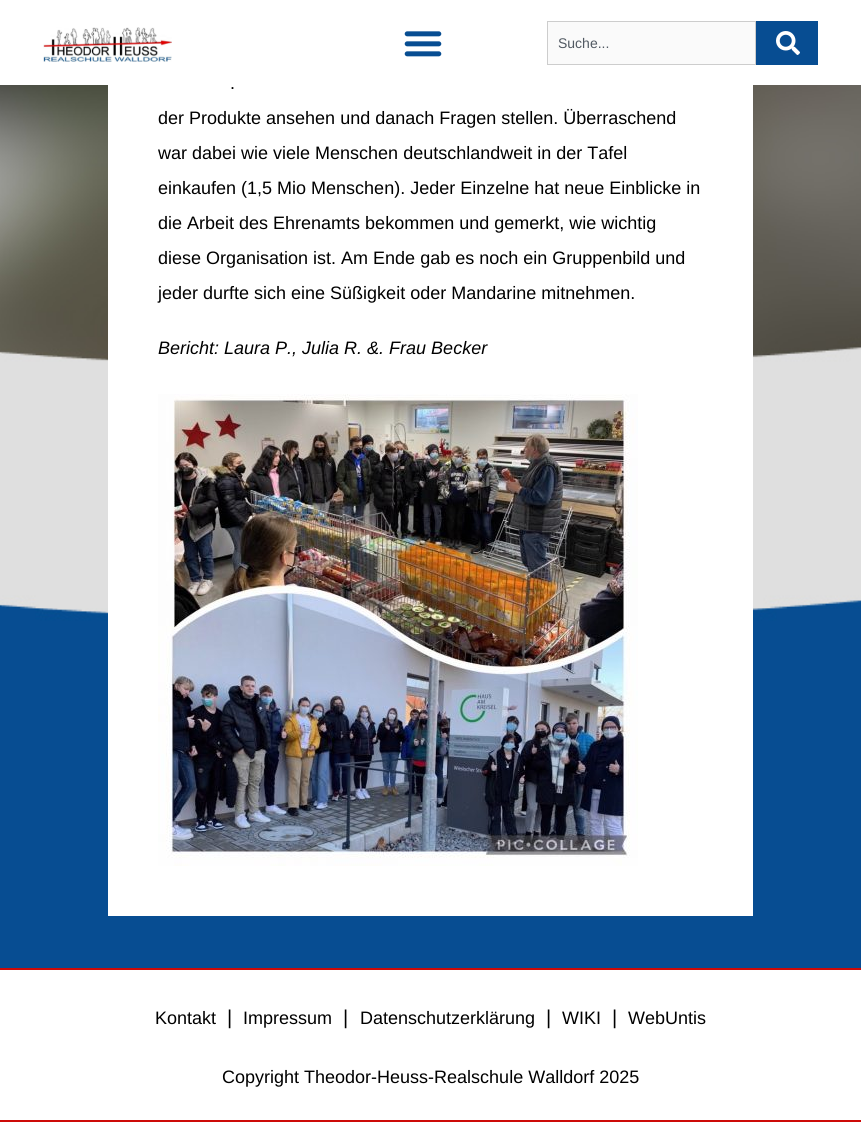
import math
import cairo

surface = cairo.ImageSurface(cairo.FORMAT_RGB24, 861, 1122)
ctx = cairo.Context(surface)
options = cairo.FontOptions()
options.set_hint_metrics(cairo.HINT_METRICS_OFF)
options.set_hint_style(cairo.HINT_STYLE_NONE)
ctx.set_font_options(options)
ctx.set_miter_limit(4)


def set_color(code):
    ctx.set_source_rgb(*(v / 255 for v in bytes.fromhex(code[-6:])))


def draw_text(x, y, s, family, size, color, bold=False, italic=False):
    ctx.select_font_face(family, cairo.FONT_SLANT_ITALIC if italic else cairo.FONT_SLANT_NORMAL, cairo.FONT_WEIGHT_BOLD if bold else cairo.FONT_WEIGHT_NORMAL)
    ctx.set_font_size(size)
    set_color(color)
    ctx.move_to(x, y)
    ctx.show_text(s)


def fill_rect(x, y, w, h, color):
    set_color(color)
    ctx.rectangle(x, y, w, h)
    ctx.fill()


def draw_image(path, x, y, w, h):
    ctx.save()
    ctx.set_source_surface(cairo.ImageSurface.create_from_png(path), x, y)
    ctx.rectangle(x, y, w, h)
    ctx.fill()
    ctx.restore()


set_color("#ffffff")
ctx.paint()
draw_image("assets/img1.png", 0, 85, 861, 883)
draw_image("assets/img2.png", 43, 27, 129, 35)
draw_image("assets/img3.png", 404, 31, 38, 26)
set_color("#fafafa")
ctx.rectangle(547.5, 21.5, 208, 43)
ctx.fill_preserve()
set_color("#cdcdcd")
ctx.set_line_width(1)
ctx.stroke()
draw_text(558, 48, "Suche...", "Liberation Sans", 14, "#515962")
fill_rect(756, 21, 62, 44, "#074d92")
draw_image("assets/img4.png", 776, 31, 24, 24)
fill_rect(108, 85, 645, 831, "#ffffff")
draw_text(230, 89, ".", "Liberation Sans", 18, "#000000")
draw_text(158, 124, "der Produkte ansehen und danach Fragen stellen. Überraschend", "Liberation Sans", 18, "#000000")
draw_text(158, 159, "war dabei wie viele Menschen deutschlandweit in der Tafel", "Liberation Sans", 18, "#000000")
draw_text(158, 194, "einkaufen (1,5 Mio Menschen). Jeder Einzelne hat neue Einblicke in", "Liberation Sans", 18, "#000000")
draw_text(158, 229, "die Arbeit des Ehrenamts bekommen und gemerkt, wie wichtig", "Liberation Sans", 18, "#000000")
draw_text(158, 264, "diese Organisation ist. Am Ende gab es noch ein Gruppenbild und", "Liberation Sans", 18, "#000000")
draw_text(158, 299, "jeder durfte sich eine Süßigkeit oder Mandarine mitnehmen.", "Liberation Sans", 18, "#000000")
draw_text(158, 354, "Bericht: Laura P., Julia R. &. Frau Becker", "Liberation Sans", 18, "#000000", italic=True)
draw_image("assets/img5.png", 158, 394, 480, 472)
fill_rect(0, 968, 861, 2, "#cd0a08")
fill_rect(0, 1120, 861, 2, "#cd0a08")
draw_text(155, 1024, "Kontakt", "Liberation Sans", 18, "#000000")
draw_text(227, 1024, "|", "Liberation Sans", 20, "#000000")
draw_text(243, 1024, "Impressum", "Liberation Sans", 18, "#000000")
draw_text(343, 1024, "|", "Liberation Sans", 20, "#000000")
draw_text(360, 1024, "Datenschutzerklärung", "Liberation Sans", 18, "#000000")
draw_text(546, 1024, "|", "Liberation Sans", 20, "#000000")
draw_text(562, 1024, "WIKI", "Liberation Sans", 18, "#000000")
draw_text(612, 1024, "|", "Liberation Sans", 20, "#000000")
draw_text(628, 1024, "WebUntis", "Liberation Sans", 18, "#000000")
draw_text(222, 1083, "Copyright Theodor-Heuss-Realschule Walldorf 2025", "Liberation Sans", 18, "#000000")
surface.write_to_png("output.png")
